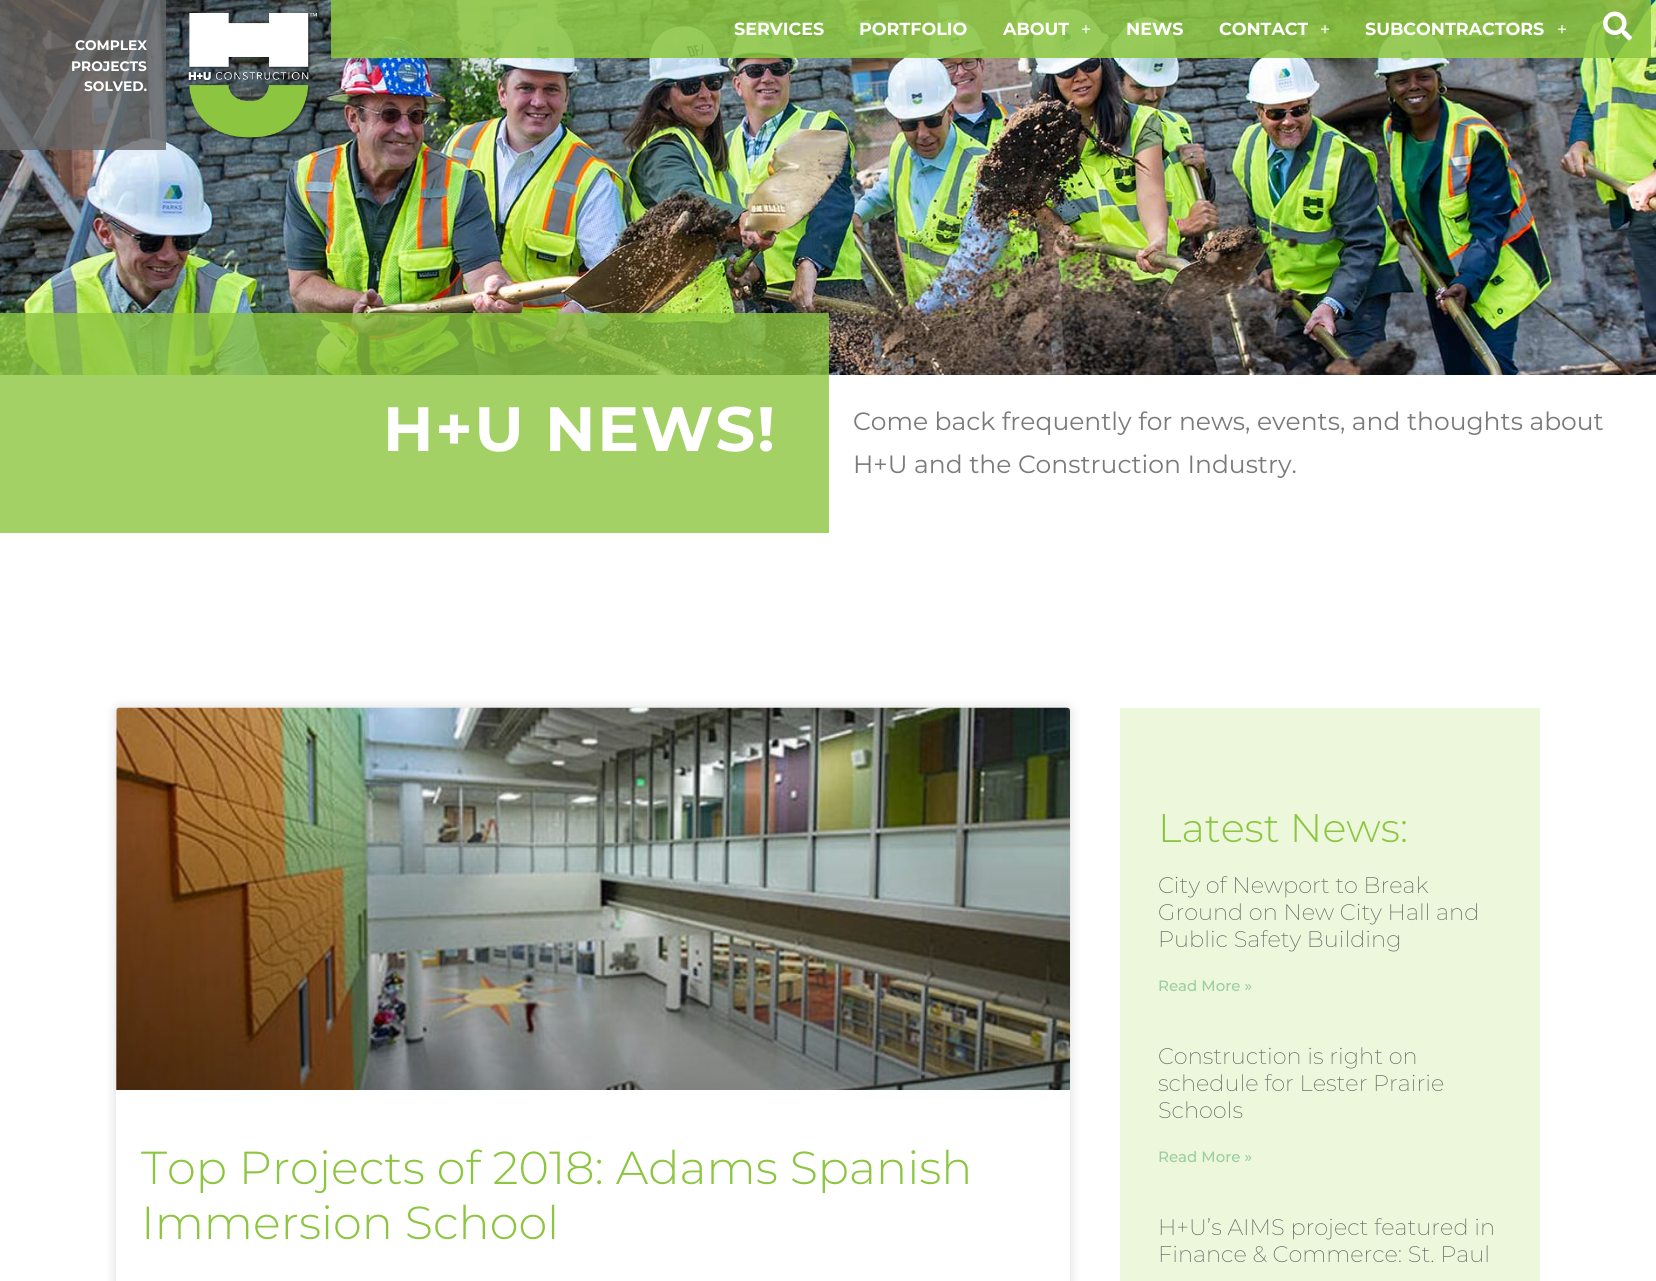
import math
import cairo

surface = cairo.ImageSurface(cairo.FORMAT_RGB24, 1656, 1281)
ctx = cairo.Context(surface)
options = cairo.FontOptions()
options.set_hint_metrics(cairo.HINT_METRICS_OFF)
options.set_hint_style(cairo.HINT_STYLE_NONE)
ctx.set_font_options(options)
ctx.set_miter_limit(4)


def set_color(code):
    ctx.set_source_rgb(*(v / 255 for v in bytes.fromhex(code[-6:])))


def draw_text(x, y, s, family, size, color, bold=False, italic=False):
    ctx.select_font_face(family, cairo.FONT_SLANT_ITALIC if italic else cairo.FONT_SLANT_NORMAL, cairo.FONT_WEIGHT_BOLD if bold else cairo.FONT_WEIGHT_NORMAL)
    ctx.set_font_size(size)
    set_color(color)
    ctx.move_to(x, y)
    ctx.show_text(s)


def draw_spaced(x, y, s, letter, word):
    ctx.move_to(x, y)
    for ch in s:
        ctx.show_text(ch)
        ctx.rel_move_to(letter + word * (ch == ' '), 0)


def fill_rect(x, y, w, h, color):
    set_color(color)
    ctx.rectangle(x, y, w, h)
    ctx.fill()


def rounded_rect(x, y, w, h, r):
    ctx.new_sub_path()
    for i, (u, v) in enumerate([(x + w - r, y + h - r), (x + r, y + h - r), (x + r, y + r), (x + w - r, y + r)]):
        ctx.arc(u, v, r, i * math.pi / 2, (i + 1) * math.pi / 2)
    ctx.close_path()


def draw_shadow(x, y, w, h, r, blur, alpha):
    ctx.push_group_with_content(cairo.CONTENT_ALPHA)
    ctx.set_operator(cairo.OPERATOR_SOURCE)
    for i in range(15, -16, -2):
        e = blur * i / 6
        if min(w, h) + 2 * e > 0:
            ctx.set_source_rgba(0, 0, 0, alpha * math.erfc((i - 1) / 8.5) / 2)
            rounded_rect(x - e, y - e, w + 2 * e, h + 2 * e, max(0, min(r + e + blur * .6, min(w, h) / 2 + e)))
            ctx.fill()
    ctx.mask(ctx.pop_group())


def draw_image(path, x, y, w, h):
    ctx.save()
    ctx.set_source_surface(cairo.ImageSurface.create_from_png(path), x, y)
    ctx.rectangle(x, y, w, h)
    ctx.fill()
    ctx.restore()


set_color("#ffffff")
ctx.paint()
draw_image("assets/img3.png", 0, 0, 1656, 375)
draw_image("assets/img1.png", 188, 12, 131, 128)
ctx.set_source_rgba(0.549, 0.773, 0.251, 0.86)
ctx.rectangle(331, 0, 1320, 58)
ctx.fill()
draw_text(734, 35, "SERVICES", "Montserrat", 17.5, "#ffffff", bold=True)
draw_text(859, 35, "PORTFOLIO", "Montserrat", 17.5, "#ffffff", bold=True)
draw_text(1003, 35, "ABOUT", "Montserrat", 17.5, "#ffffff", bold=True)
draw_text(1081, 35, "+", "Liberation Serif", 17.5, "#ffffff", bold=True)
draw_text(1126, 35, "NEWS", "Montserrat", 17.5, "#ffffff", bold=True)
draw_text(1219, 35, "CONTACT", "Montserrat", 17.5, "#ffffff", bold=True)
draw_text(1320, 35, "+", "Liberation Serif", 17.5, "#ffffff", bold=True)
draw_text(1365, 35, "SUBCONTRACTORS", "Montserrat", 17.5, "#ffffff", bold=True)
draw_text(1557, 35, "+", "Liberation Serif", 17.5, "#ffffff", bold=True)
draw_image("assets/img2.png", 1603, 11, 29, 30)
ctx.set_source_rgba(0.404, 0.404, 0.404, 0.8)
ctx.rectangle(0, 0, 166, 150)
ctx.fill()
draw_text(75, 50, "COMPLEX", "Montserrat", 13.75, "#ffffff", bold=True)
draw_text(71, 71, "PROJECTS", "Montserrat", 13.75, "#ffffff", bold=True)
draw_text(84, 91, "SOLVED.", "Montserrat", 13.75, "#ffffff", bold=True)
ctx.set_source_rgba(0.549, 0.773, 0.251, 0.8)
ctx.rectangle(0, 313, 829, 220)
ctx.fill()
ctx.set_font_size(62.5)
set_color("#ffffff")
draw_spaced(383, 451, "H+U NEWS!", 1.75, 0)
draw_text(853, 430, "Come back frequently for news, events, and thoughts about", "Montserrat", 25, "#7a7a7a")
draw_text(853, 473, "H+U and the Construction Industry.", "Montserrat", 25, "#7a7a7a")
set_color("#000000")
draw_shadow(116, 708, 954, 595, 4, 6, 0.15)
set_color("#ffffff")
rounded_rect(116, 708, 954, 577, 4)
ctx.fill()
draw_image("assets/img4.png", 116, 707, 954, 383)
gradient = cairo.LinearGradient(593, 1090, 593, 708)
gradient.add_color_stop_rgba(0, 0, 0, 0, 0.35)
gradient.add_color_stop_rgba(0.75, 0, 0, 0, 0)
ctx.set_source(gradient)
ctx.rectangle(116, 821, 954, 269)
ctx.fill()
draw_text(141, 1184, "Top Projects of 2018: Adams Spanish", "Montserrat Light", 46.25, "#8cc540")
draw_text(141, 1239, "Immersion School", "Montserrat Light", 46.25, "#8cc540")
fill_rect(1120, 708, 420, 573, "#ecf7db")
draw_text(1158, 842, "Latest News:", "Montserrat Light", 40, "#8cc540")
draw_text(1158, 893, "City of Newport to Break", "Montserrat ExtraLight", 22.5, "#676767")
draw_text(1158, 920, "Ground on New City Hall and", "Montserrat ExtraLight", 22.5, "#676767")
draw_text(1158, 947, "Public Safety Building", "Montserrat ExtraLight", 22.5, "#676767")
draw_text(1158, 991, "Read More »", "Montserrat Medium", 15, "#9acea0")
draw_text(1158, 1064, "Construction is right on", "Montserrat ExtraLight", 22.5, "#676767")
draw_text(1158, 1091, "schedule for Lester Prairie", "Montserrat ExtraLight", 22.5, "#676767")
draw_text(1158, 1118, "Schools", "Montserrat ExtraLight", 22.5, "#676767")
draw_text(1158, 1162, "Read More »", "Montserrat Medium", 15, "#9acea0")
draw_text(1158, 1235, "H+U’s AIMS project featured in", "Montserrat ExtraLight", 22.5, "#676767")
draw_text(1158, 1262, "Finance & Commerce: St. Paul", "Montserrat ExtraLight", 22.5, "#676767")
surface.write_to_png("output.png")
